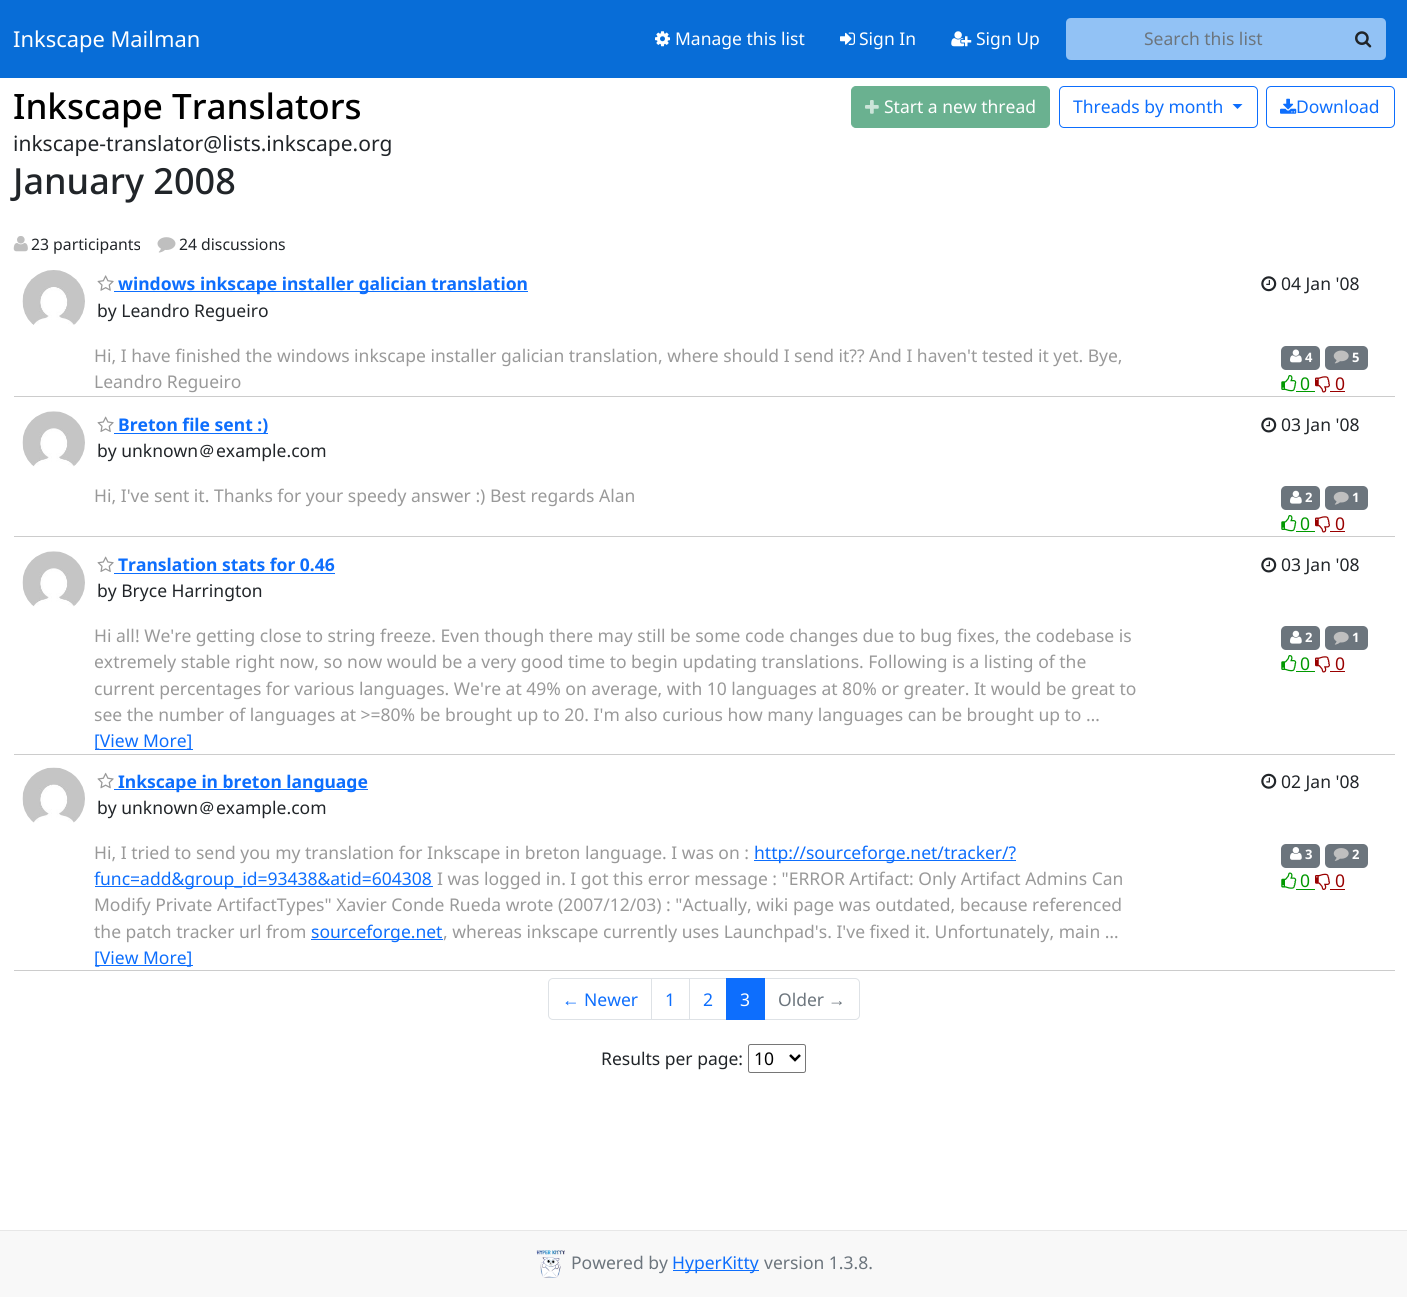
import math
import cairo

surface = cairo.ImageSurface(cairo.FORMAT_RGB24, 1407, 1297)
ctx = cairo.Context(surface)
options = cairo.FontOptions()
options.set_hint_metrics(cairo.HINT_METRICS_OFF)
options.set_hint_style(cairo.HINT_STYLE_NONE)
ctx.set_font_options(options)
ctx.set_miter_limit(4)


def set_color(code):
    ctx.set_source_rgb(*(v / 255 for v in bytes.fromhex(code[-6:])))


def draw_text(x, y, s, family, size, color, bold=False, italic=False):
    ctx.select_font_face(family, cairo.FONT_SLANT_ITALIC if italic else cairo.FONT_SLANT_NORMAL, cairo.FONT_WEIGHT_BOLD if bold else cairo.FONT_WEIGHT_NORMAL)
    ctx.set_font_size(size)
    set_color(color)
    ctx.move_to(x, y)
    ctx.show_text(s)


def fill_rect(x, y, w, h, color):
    set_color(color)
    ctx.rectangle(x, y, w, h)
    ctx.fill()


def rounded_rect(x, y, w, h, r):
    ctx.new_sub_path()
    for i, (u, v) in enumerate([(x + w - r, y + h - r), (x + r, y + h - r), (x + r, y + r), (x + w - r, y + r)]):
        ctx.arc(u, v, r, i * math.pi / 2, (i + 1) * math.pi / 2)
    ctx.close_path()


def draw_image(path, x, y, w, h):
    ctx.save()
    ctx.set_source_surface(cairo.ImageSurface.create_from_png(path), x, y)
    ctx.rectangle(x, y, w, h)
    ctx.fill()
    ctx.restore()


set_color("#ffffff")
ctx.paint()
fill_rect(0, 0, 1407, 78, "#086dd7")
draw_text(13, 47, "Inkscape Mailman", "Noto Sans", 21.9, "#ffffff")
draw_image("assets/img1.png", 655, 31, 15, 16)
draw_text(675, 45, "Manage this list", "Noto Sans", 17.5, "#ffffff")
draw_image("assets/img2.png", 840, 32, 15, 13)
draw_text(859, 45, "Sign In", "Noto Sans", 17.5, "#ffffff")
draw_image("assets/img3.png", 951, 31, 21, 16)
draw_text(976, 45, "Sign Up", "Noto Sans", 17.5, "#ffffff")
set_color("#92c2f5")
ctx.new_path()
ctx.move_to(1071, 18)
ctx.line_to(1343, 18)
ctx.line_to(1343, 60)
ctx.line_to(1071, 60)
ctx.curve_to(1068, 60, 1066, 58, 1066, 55)
ctx.line_to(1066, 23)
ctx.curve_to(1066, 20, 1068, 18, 1071, 18)
ctx.close_path()
ctx.fill()
draw_text(1144, 45, "Search this list", "Noto Sans", 17.5, "#6c757d")
set_color("#92c2f5")
ctx.new_path()
ctx.move_to(1341, 18)
ctx.line_to(1381, 18)
ctx.curve_to(1384, 18, 1386, 20, 1386, 23)
ctx.line_to(1386, 55)
ctx.curve_to(1386, 58, 1384, 60, 1381, 60)
ctx.line_to(1341, 60)
ctx.close_path()
ctx.fill()
draw_image("assets/img4.png", 1355, 31, 17, 17)
draw_text(13, 119, "Inkscape Translators", "Noto Sans Medium", 35, "#000000")
set_color("#6ab190")
rounded_rect(851.5, 86.5, 198, 41, 4.5)
ctx.fill_preserve()
ctx.set_line_width(1)
ctx.stroke()
draw_image("assets/img5.png", 865, 100, 14, 14)
draw_text(884, 113, "Start a new thread", "Noto Sans", 17.5, "#ffffff")
rounded_rect(1059.5, 86.5, 198, 41, 4.5)
set_color("#0d6efd")
ctx.stroke()
draw_text(1073, 113, "Threads by month", "Noto Sans", 17.5, "#0d6efd")
ctx.new_path()
ctx.move_to(1232.5, 104)
ctx.line_to(1242.5, 104)
ctx.line_to(1237.5, 109)
ctx.close_path()
ctx.fill()
rounded_rect(1266.5, 86.5, 128, 41, 4.5)
ctx.stroke()
draw_image("assets/img6.png", 1280, 98, 17, 16)
draw_text(1296, 113, "Download", "Noto Sans", 17.5, "#0d6efd")
draw_text(13, 151, "inkscape-translator@lists.inkscape.org", "Noto Sans", 21, "#212529")
draw_text(13, 194, "January 2008", "Noto Sans Medium", 36, "#212529")
draw_image("assets/img7.png", 13, 236, 15, 16)
draw_text(31, 250, "23 participants", "Noto Sans", 15.75, "#212529")
draw_image("assets/img8.png", 157, 237, 19, 16)
draw_text(179, 250, "24 discussions", "Noto Sans", 15.75, "#212529")
fill_rect(14, 396, 1381, 1, "#cccccc")
draw_image("assets/img9.png", 22, 270, 63, 55)
draw_image("assets/img10.png", 97, 275, 17, 16)
fill_rect(114, 291, 414, 1, "#0d6efd")
draw_text(118, 290, "windows inkscape installer galician translation", "Noto Sans", 17.5, "#0d6efd", bold=True)
draw_text(97, 317, "by Leandro Regueiro", "Noto Sans", 17.5, "#212529")
draw_image("assets/img11.png", 1261, 276, 16, 16)
draw_text(1281, 290, "04 Jan '08", "Noto Sans", 17.5, "#212529")
draw_text(94, 362, "Hi, I have finished the windows inkscape installer galician translation, where should I send it?? And I haven't tested it yet. Bye,", "Noto Sans", 17.5, "#999999")
draw_text(94, 388, "Leandro Regueiro", "Noto Sans", 17.5, "#999999")
set_color("#6c757d")
rounded_rect(1281, 346, 39, 24, 5)
ctx.fill()
draw_image("assets/img12.png", 1290, 349, 12, 14)
draw_text(1305, 362, "4", "Noto Sans", 13, "#ffffff", bold=True)
set_color("#6c757d")
rounded_rect(1325, 346, 43, 24, 5)
ctx.fill()
draw_image("assets/img13.png", 1333, 350, 16, 14)
draw_text(1352, 362, "5", "Noto Sans", 13, "#ffffff", bold=True)
draw_image("assets/img14.png", 1281, 375, 16, 17)
draw_text(1300, 390, "0", "Noto Sans", 17.5, "#009900")
fill_rect(1296, 391, 19, 1, "#009900")
draw_image("assets/img15.png", 1315, 376, 15, 17)
draw_text(1335, 390, "0", "Noto Sans", 17.5, "#990000")
fill_rect(1330, 391, 15, 1, "#990000")
fill_rect(14, 536, 1381, 1, "#cccccc")
draw_image("assets/img16.png", 22, 411, 63, 56)
draw_image("assets/img17.png", 97, 416, 17, 16)
fill_rect(114, 433, 154, 1, "#0d6efd")
draw_text(118, 431, "Breton file sent :)", "Noto Sans", 17.5, "#0d6efd", bold=True)
draw_text(97, 457, "by unknown", "Noto Sans", 17.5, "#212529")
draw_text(198, 457, "＠", "WenQuanYi Zen Hei Medium", 17.5, "#212529")
draw_text(216, 457, "example.com", "Noto Sans", 17.5, "#212529")
draw_image("assets/img18.png", 1261, 417, 16, 16)
draw_text(1281, 431, "03 Jan '08", "Noto Sans", 17.5, "#212529")
draw_text(94, 502, "Hi, I've sent it. Thanks for your speedy answer :) Best regards Alan", "Noto Sans", 17.5, "#999999")
set_color("#6c757d")
rounded_rect(1281, 486, 39, 24, 5)
ctx.fill()
draw_image("assets/img19.png", 1290, 490, 12, 14)
draw_text(1305, 502, "2", "Noto Sans", 13, "#ffffff", bold=True)
set_color("#6c757d")
rounded_rect(1325, 486, 43, 24, 5)
ctx.fill()
draw_image("assets/img20.png", 1333, 491, 16, 14)
draw_text(1352, 502, "1", "Noto Sans", 13, "#ffffff", bold=True)
draw_image("assets/img14.png", 1281, 515, 16, 17)
draw_text(1300, 530, "0", "Noto Sans", 17.5, "#009900")
fill_rect(1296, 531, 19, 1, "#009900")
draw_image("assets/img15.png", 1315, 516, 15, 17)
draw_text(1335, 530, "0", "Noto Sans", 17.5, "#990000")
fill_rect(1330, 531, 15, 1, "#990000")
fill_rect(14, 754, 1381, 1, "#cccccc")
draw_image("assets/img16.png", 22, 551, 63, 56)
draw_image("assets/img17.png", 97, 556, 17, 16)
draw_text(118, 571, "Translation stats for 0.46", "Noto Sans", 17.5, "#0d6efd", bold=True)
fill_rect(114, 573, 221, 1, "#0d6efd")
draw_text(97, 597, "by Bryce Harrington", "Noto Sans", 17.5, "#212529")
draw_image("assets/img18.png", 1261, 557, 16, 16)
draw_text(1281, 571, "03 Jan '08", "Noto Sans", 17.5, "#212529")
draw_text(94, 642, "Hi all! We're getting close to string freeze. Even though there may still be some code changes due to bug fixes, the codebase is", "Noto Sans", 17.5, "#999999")
draw_text(94, 668, "extremely stable right now, so now would be a very good time to begin updating translations. Following is a listing of the", "Noto Sans", 17.5, "#999999")
draw_text(94, 695, "current percentages for various languages. We're at 49% on average, with 10 languages at 80% or greater. It would be great to", "Noto Sans", 17.5, "#999999")
draw_text(94, 721, "see the number of languages at >=80% be brought up to 20. I'm also curious how many languages can be brought up to …", "Noto Sans", 17.5, "#999999")
fill_rect(95, 749, 98, 1, "#0d6efd")
draw_text(94, 747, "[View More]", "Noto Sans", 17.5, "#0d6efd")
set_color("#6c757d")
rounded_rect(1281, 626, 39, 24, 5)
ctx.fill()
draw_image("assets/img19.png", 1290, 630, 12, 14)
draw_text(1305, 642, "2", "Noto Sans", 13, "#ffffff", bold=True)
set_color("#6c757d")
rounded_rect(1325, 626, 43, 24, 5)
ctx.fill()
draw_image("assets/img20.png", 1333, 631, 16, 14)
draw_text(1352, 642, "1", "Noto Sans", 13, "#ffffff", bold=True)
draw_image("assets/img14.png", 1281, 655, 16, 17)
draw_text(1300, 670, "0", "Noto Sans", 17.5, "#009900")
fill_rect(1296, 671, 19, 1, "#009900")
draw_image("assets/img15.png", 1315, 656, 15, 17)
draw_text(1335, 670, "0", "Noto Sans", 17.5, "#990000")
fill_rect(1330, 671, 15, 1, "#990000")
fill_rect(14, 970, 1381, 1, "#cccccc")
draw_image("assets/img21.png", 22, 767, 63, 56)
draw_image("assets/img22.png", 97, 772, 17, 17)
fill_rect(114, 789, 254, 1, "#0d6efd")
draw_text(118, 788, "Inkscape in breton language", "Noto Sans", 17.5, "#0d6efd", bold=True)
draw_text(97, 814, "by unknown", "Noto Sans", 17.5, "#212529")
draw_text(198, 814, "＠", "WenQuanYi Zen Hei Medium", 17.5, "#212529")
draw_text(216, 814, "example.com", "Noto Sans", 17.5, "#212529")
draw_image("assets/img23.png", 1261, 773, 16, 16)
draw_text(1281, 788, "02 Jan '08", "Noto Sans", 17.5, "#212529")
draw_text(94, 859, "Hi, I tried to send you my translation for Inkscape in breton language. I was on :", "Noto Sans", 17.5, "#999999")
fill_rect(754, 860, 262, 1, "#0d6efd")
draw_text(754, 859, "http://sourceforge.net/tracker/?", "Noto Sans", 17.5, "#0d6efd")
fill_rect(95, 886, 338, 1, "#0d6efd")
draw_text(94, 885, "func=add&group_id=93438&atid=604308", "Noto Sans", 17.5, "#0d6efd")
draw_text(437, 885, "I was logged in. I got this error message : \"ERROR Artifact: Only Artifact Admins Can", "Noto Sans", 17.5, "#999999")
draw_text(94, 911, "Modify Private ArtifactTypes\" Xavier Conde Rueda wrote (2007/12/03) : \"Actually, wiki page was outdated, because referenced", "Noto Sans", 17.5, "#999999")
draw_text(94, 938, "the patch tracker url from", "Noto Sans", 17.5, "#999999")
fill_rect(311, 939, 132, 1, "#0d6efd")
draw_text(311, 938, "sourceforge.net", "Noto Sans", 17.5, "#0d6efd")
draw_text(443, 938, ", whereas inkscape currently uses Launchpad's. I've fixed it. Unfortunately, main …", "Noto Sans", 17.5, "#999999")
fill_rect(95, 965, 98, 1, "#0d6efd")
draw_text(94, 964, "[View More]", "Noto Sans", 17.5, "#0d6efd")
set_color("#6c757d")
rounded_rect(1281, 844, 39, 24, 5)
ctx.fill()
draw_image("assets/img24.png", 1290, 847, 12, 13)
draw_text(1305, 859, "3", "Noto Sans", 13, "#ffffff", bold=True)
set_color("#6c757d")
rounded_rect(1325, 844, 43, 24, 5)
ctx.fill()
draw_image("assets/img25.png", 1333, 848, 16, 13)
draw_text(1352, 859, "2", "Noto Sans", 13, "#ffffff", bold=True)
draw_image("assets/img26.png", 1281, 872, 16, 17)
draw_text(1300, 887, "0", "Noto Sans", 17.5, "#009900")
fill_rect(1296, 889, 19, 1, "#009900")
draw_image("assets/img27.png", 1315, 873, 15, 17)
draw_text(1335, 887, "0", "Noto Sans", 17.5, "#990000")
fill_rect(1330, 889, 15, 1, "#990000")
ctx.new_path()
ctx.move_to(553, 978.5)
ctx.line_to(652.5, 978.5)
ctx.line_to(652.5, 1019.5)
ctx.line_to(553, 1019.5)
ctx.curve_to(550.5, 1019.5, 548.5, 1017.5, 548.5, 1015)
ctx.line_to(548.5, 983)
ctx.curve_to(548.5, 980.5, 550.5, 978.5, 553, 978.5)
ctx.close_path()
set_color("#dee2e6")
ctx.stroke()
draw_text(562, 1006, "←", "Liberation Sans", 17.5, "#0d6efd")
draw_text(584, 1006, "Newer", "Noto Sans", 17.5, "#0d6efd")
fill_rect(652, 979, 1, 40, "#ffffff")
ctx.rectangle(651.5, 978.5, 38, 41)
set_color("#dee2e6")
ctx.stroke()
draw_text(665, 1006, "1", "Noto Sans", 17.5, "#0d6efd")
ctx.rectangle(689.5, 978.5, 38, 41)
set_color("#dee2e6")
ctx.stroke()
draw_text(703, 1006, "2", "Noto Sans", 17.5, "#0d6efd")
ctx.new_path()
ctx.move_to(764.5, 978.5)
ctx.line_to(855, 978.5)
ctx.curve_to(857.5, 978.5, 859.5, 980.5, 859.5, 983)
ctx.line_to(859.5, 1015)
ctx.curve_to(859.5, 1017.5, 857.5, 1019.5, 855, 1019.5)
ctx.line_to(764.5, 1019.5)
ctx.close_path()
set_color("#dee2e6")
ctx.stroke()
fill_rect(726, 978, 39, 42, "#0d6efd")
draw_text(740, 1006, "3", "Noto Sans", 17.5, "#ffffff")
draw_text(778, 1006, "Older", "Noto Sans", 17.5, "#6c757d")
draw_text(828, 1006, "→", "Liberation Sans", 17.5, "#6c757d")
draw_text(601, 1065, "Results per page:", "Noto Sans", 17.5, "#212529")
rounded_rect(748.5, 1044.5, 57, 28, 2)
set_color("#767676")
ctx.stroke()
ctx.new_path()
ctx.move_to(790, 1055)
ctx.line_to(795, 1060)
ctx.line_to(800, 1055)
set_color("#000000")
ctx.set_line_width(2.5)
ctx.stroke()
draw_text(754, 1065, "10", "Noto Sans", 17.5, "#000000")
fill_rect(0, 1231, 1407, 66, "#f8f8f8")
fill_rect(0, 1230, 1407, 1, "#e7e7e7")
draw_image("assets/img28.png", 536, 1250, 29, 28)
draw_text(571, 1269, "Powered by", "Noto Sans", 17.5, "#6c757d")
fill_rect(673, 1270, 86, 1, "#0d6efd")
draw_text(672, 1269, "HyperKitty", "Noto Sans", 17.5, "#0d6efd")
draw_text(764, 1269, "version 1.3.8.", "Noto Sans", 17.5, "#6c757d")
surface.write_to_png("output.png")
